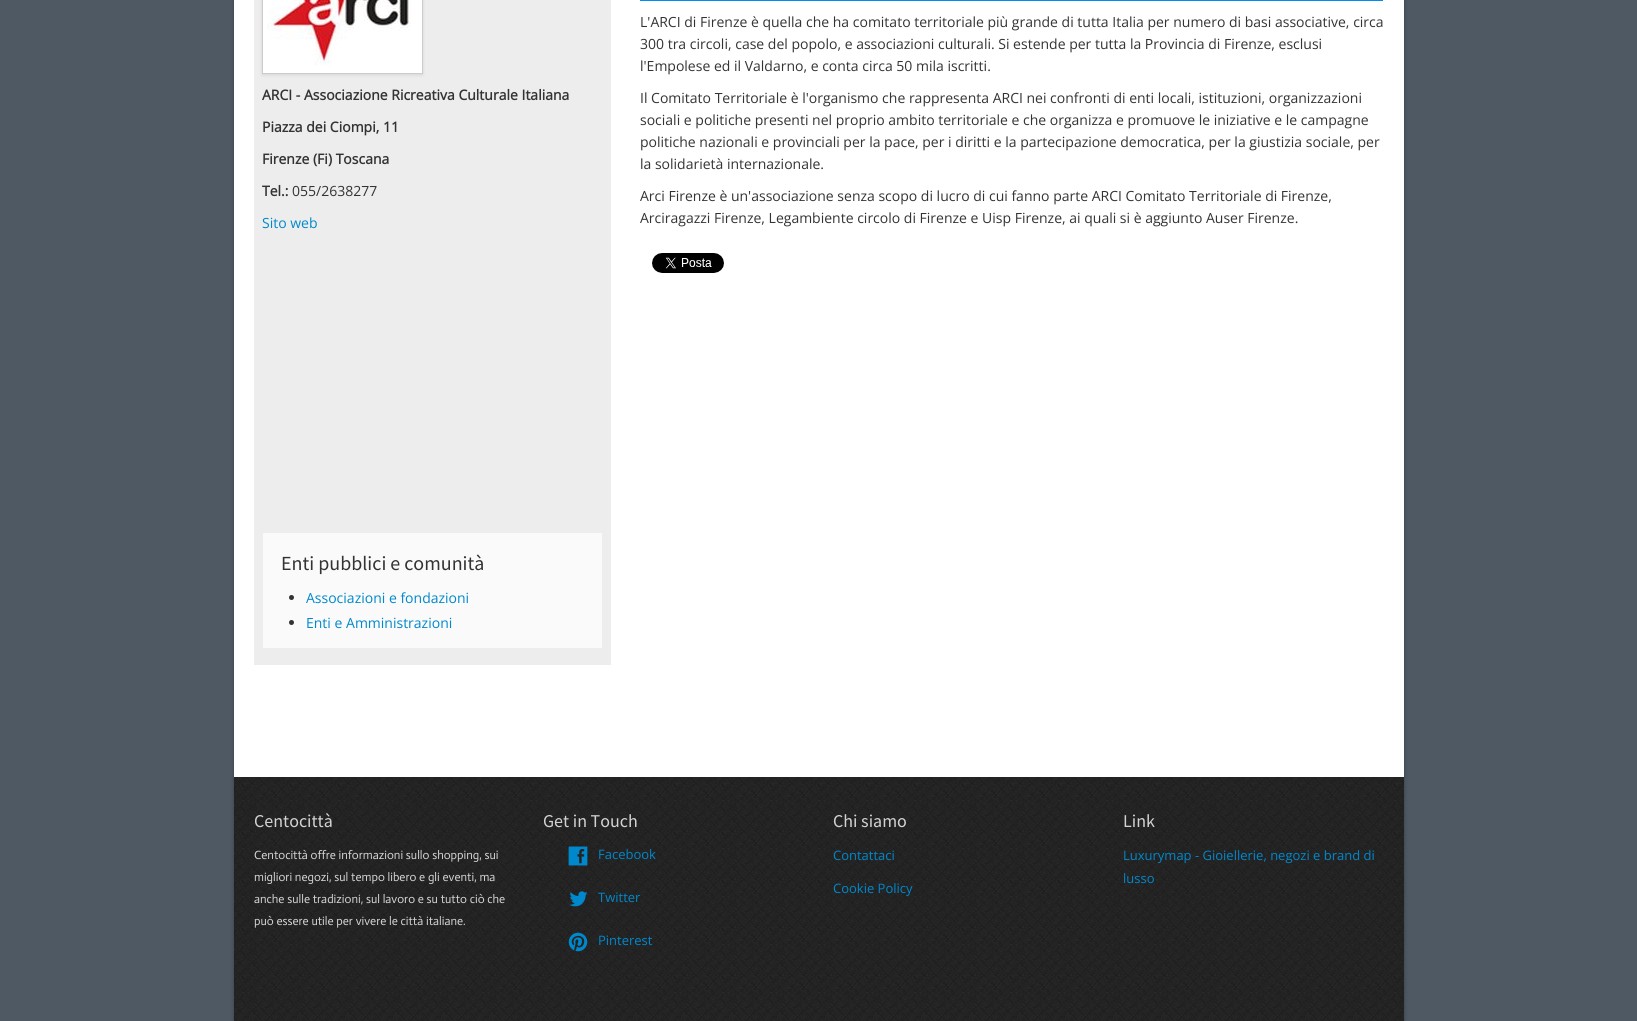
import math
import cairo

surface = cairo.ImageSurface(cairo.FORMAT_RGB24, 1637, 1021)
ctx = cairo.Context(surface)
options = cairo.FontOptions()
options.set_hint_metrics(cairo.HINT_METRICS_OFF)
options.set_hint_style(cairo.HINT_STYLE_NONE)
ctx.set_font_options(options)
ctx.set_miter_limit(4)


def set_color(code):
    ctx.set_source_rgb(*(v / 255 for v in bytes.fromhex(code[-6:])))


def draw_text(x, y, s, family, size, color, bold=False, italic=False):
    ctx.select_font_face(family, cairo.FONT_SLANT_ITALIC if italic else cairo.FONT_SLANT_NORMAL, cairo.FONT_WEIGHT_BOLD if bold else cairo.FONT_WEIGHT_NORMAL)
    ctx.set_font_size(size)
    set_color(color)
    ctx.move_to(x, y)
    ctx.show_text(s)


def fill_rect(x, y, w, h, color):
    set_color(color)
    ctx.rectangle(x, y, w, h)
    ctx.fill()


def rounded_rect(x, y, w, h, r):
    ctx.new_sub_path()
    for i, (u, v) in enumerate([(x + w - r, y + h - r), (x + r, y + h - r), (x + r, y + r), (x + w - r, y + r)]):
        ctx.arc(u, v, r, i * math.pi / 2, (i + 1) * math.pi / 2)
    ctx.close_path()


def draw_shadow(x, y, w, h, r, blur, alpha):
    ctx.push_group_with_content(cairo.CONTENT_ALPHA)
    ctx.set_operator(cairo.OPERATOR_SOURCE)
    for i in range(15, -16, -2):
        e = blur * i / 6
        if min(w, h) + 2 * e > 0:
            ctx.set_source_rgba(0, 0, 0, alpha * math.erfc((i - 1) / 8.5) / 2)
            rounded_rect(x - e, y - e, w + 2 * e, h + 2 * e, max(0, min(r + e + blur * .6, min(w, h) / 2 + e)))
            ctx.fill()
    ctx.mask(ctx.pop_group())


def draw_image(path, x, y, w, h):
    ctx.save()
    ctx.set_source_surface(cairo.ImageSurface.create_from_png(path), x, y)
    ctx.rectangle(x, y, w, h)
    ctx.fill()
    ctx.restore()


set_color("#4f5963")
ctx.paint()
set_color("#000000")
draw_shadow(234, -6, 1170, 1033, 0, 2, 0.3)
fill_rect(234, 0, 1170, 777, "#ffffff")
fill_rect(640, 0, 743, 1, "#008cf1")
fill_rect(254, 0, 357, 665, "#ededed")
set_color("#000000")
draw_shadow(262, -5, 161, 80, 0, 1.5, 0.1)
set_color("#ffffff")
ctx.rectangle(262.5, -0.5, 160, 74)
ctx.fill_preserve()
set_color("#cccccc")
ctx.set_line_width(1)
ctx.stroke()
draw_image("assets/img1.png", 267, 0, 144, 66)
draw_text(262, 100, "ARCI - Associazione Ricreativa Culturale Italiana", "Open Sans", 14, "#333333", bold=True)
draw_text(262, 132, "Piazza dei Ciompi, 11", "Open Sans", 14, "#333333", bold=True)
draw_text(262, 164, "Firenze (Fi) Toscana", "Open Sans", 14, "#333333", bold=True)
draw_text(262, 196, "Tel.:", "Open Sans", 14, "#333333", bold=True)
draw_text(292, 196, "055/2638277", "Open Sans", 14, "#333333")
draw_text(262, 228, "Sito web", "Open Sans", 14, "#0088cc")
fill_rect(263, 533, 339, 115, "#fafafa")
draw_text(281, 570, "Enti pubblici e comunità", "Source Sans Pro", 20, "#333333")
ctx.new_path()
ctx.arc(291.5, 597.5, 2.5, 0, 2 * math.pi)
ctx.fill()
draw_text(306, 603, "Associazioni e fondazioni", "Open Sans", 14, "#0088cc")
set_color("#333333")
ctx.new_path()
ctx.arc(291.5, 622.5, 2.5, 0, 2 * math.pi)
ctx.fill()
draw_text(306, 628, "Enti e Amministrazioni", "Open Sans", 14, "#0088cc")
draw_text(640, 27, "L'ARCI di Firenze è quella che ha comitato territoriale più grande di tutta Italia per numero di basi associative, circa", "Open Sans", 14, "#333333")
draw_text(640, 49, "300 tra circoli, case del popolo, e associazioni culturali. Si estende per tutta la Provincia di Firenze, esclusi", "Open Sans", 14, "#333333")
draw_text(640, 71, "l'Empolese ed il Valdarno, e conta circa 50 mila iscritti.", "Open Sans", 14, "#333333")
draw_text(640, 103, "Il Comitato Territoriale è l'organismo che rappresenta ARCI nei confronti di enti locali, istituzioni, organizzazioni", "Open Sans", 14, "#333333")
draw_text(640, 125, "sociali e politiche presenti nel proprio ambito territoriale e che organizza e promuove le iniziative e le campagne", "Open Sans", 14, "#333333")
draw_text(640, 147, "politiche nazionali e provinciali per la pace, per i diritti e la partecipazione democratica, per la giustizia sociale, per", "Open Sans", 14, "#333333")
draw_text(640, 169, "la solidarietà internazionale.", "Open Sans", 14, "#333333")
draw_text(640, 201, "Arci Firenze è un'associazione senza scopo di lucro di cui fanno parte ARCI Comitato Territoriale di Firenze,", "Open Sans", 14, "#333333")
draw_text(640, 223, "Arciragazzi Firenze, Legambiente circolo di Firenze e Uisp Firenze, ai quali si è aggiunto Auser Firenze.", "Open Sans", 14, "#333333")
draw_image("assets/img2.png", 652, 253, 72, 20)
draw_image("assets/img3.png", 234, 777, 1170, 244)
draw_text(254, 827, "Centocittà", "Source Sans Pro", 18, "#d3d3d3")
draw_text(254, 859, "Centocittà offre informazioni sullo shopping, sui", "Actor", 12, "#d3d3d3")
draw_text(254, 881, "migliori negozi, sul tempo libero e gli eventi, ma", "Actor", 12, "#d3d3d3")
draw_text(254, 903, "anche sulle tradizioni, sul lavoro e su tutto ciò che", "Actor", 12, "#d3d3d3")
draw_text(254, 925, "può essere utile per vivere le città italiane.", "Actor", 12, "#d3d3d3")
draw_text(543, 827, "Get in Touch", "Source Sans Pro", 18, "#d3d3d3")
draw_image("assets/img4.png", 568, 846, 20, 20)
draw_text(598, 859, "Facebook", "Open Sans", 13, "#0088cc")
draw_image("assets/img5.png", 569, 891, 19, 16)
draw_text(598, 902, "Twitter", "Open Sans", 13, "#0088cc")
draw_image("assets/img6.png", 568, 932, 20, 20)
draw_text(598, 945, "Pinterest", "Open Sans", 13, "#0088cc")
draw_text(833, 827, "Chi siamo", "Source Sans Pro", 18, "#d3d3d3")
draw_text(833, 860, "Contattaci", "Open Sans", 13, "#0088cc")
draw_text(833, 893, "Cookie Policy", "Open Sans", 13, "#0088cc")
draw_text(1123, 827, "Link", "Source Sans Pro", 18, "#d3d3d3")
draw_text(1123, 860, "Luxurymap - Gioiellerie, negozi e brand di", "Open Sans", 13, "#0088cc")
draw_text(1123, 883, "lusso", "Open Sans", 13, "#0088cc")
surface.write_to_png("output.png")
